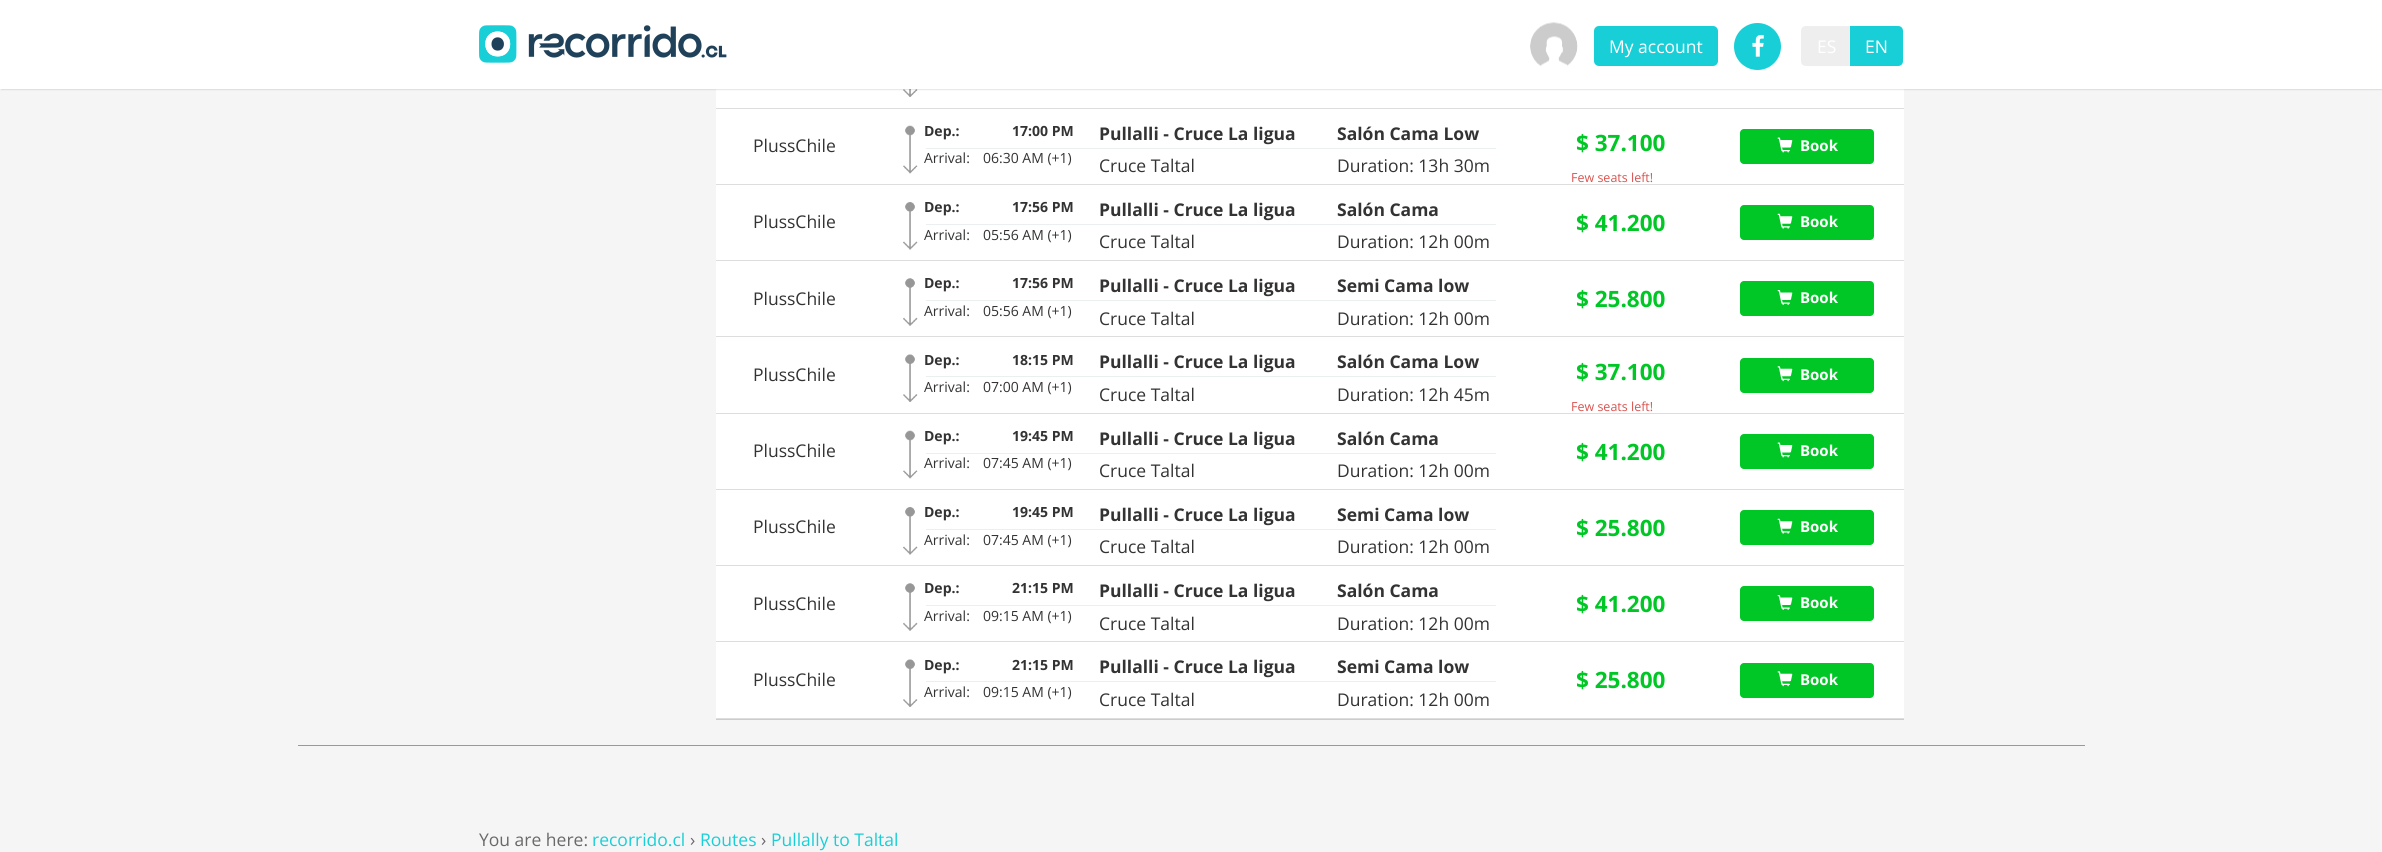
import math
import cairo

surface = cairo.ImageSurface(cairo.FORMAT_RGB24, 2382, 852)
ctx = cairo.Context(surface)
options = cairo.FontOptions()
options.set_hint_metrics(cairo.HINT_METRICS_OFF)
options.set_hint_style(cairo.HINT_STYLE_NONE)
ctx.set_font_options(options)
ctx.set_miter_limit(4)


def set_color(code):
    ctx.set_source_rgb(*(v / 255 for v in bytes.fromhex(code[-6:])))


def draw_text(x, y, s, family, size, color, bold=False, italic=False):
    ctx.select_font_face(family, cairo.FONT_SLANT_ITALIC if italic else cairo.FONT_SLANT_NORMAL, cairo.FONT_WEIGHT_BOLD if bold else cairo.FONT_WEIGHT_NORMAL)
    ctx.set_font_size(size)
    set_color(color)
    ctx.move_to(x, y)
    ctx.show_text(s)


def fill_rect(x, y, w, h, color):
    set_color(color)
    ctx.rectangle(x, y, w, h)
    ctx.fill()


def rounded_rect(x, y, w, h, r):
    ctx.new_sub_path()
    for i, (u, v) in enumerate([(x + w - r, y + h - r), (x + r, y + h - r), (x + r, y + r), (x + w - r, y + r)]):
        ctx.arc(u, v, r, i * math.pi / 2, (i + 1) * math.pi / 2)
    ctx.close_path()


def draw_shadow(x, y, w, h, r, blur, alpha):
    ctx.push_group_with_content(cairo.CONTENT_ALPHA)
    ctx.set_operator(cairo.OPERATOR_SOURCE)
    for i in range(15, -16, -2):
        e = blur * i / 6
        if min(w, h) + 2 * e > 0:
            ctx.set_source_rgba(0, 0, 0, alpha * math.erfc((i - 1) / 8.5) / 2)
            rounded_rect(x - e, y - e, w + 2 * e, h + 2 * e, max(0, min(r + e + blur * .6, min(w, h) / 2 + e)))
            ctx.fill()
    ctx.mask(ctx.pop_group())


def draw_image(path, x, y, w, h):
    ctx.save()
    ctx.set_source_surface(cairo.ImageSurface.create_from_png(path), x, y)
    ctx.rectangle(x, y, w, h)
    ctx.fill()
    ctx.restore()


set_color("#f5f5f5")
ctx.paint()
fill_rect(716, 89, 1188, 629, "#ffffff")
draw_image("assets/img4.png", 903, 89, 15, 8)
set_color("#000000")
draw_shadow(1, 1, 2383, 89, 0, 0.5, 0.1)
fill_rect(0, 0, 2382, 89, "#ffffff")
draw_image("assets/img1.png", 479, 25, 248, 38)
draw_image("assets/img2.png", 1530, 22, 48, 44)
set_color("#18cfd7")
rounded_rect(1594, 26, 124, 40, 5)
ctx.fill()
draw_text(1609, 53, "My account", "Open Sans", 17.5, "#ffffff")
set_color("#18cfd7")
ctx.new_path()
ctx.arc(1757.5, 46.5, 23.5, 0, 2 * math.pi)
ctx.fill()
draw_image("assets/img3.png", 1752, 35, 12, 22)
set_color("#eeeeee")
ctx.new_path()
ctx.move_to(1806, 26)
ctx.line_to(1851, 26)
ctx.line_to(1851, 66)
ctx.line_to(1806, 66)
ctx.curve_to(1803, 66, 1801, 64, 1801, 61)
ctx.line_to(1801, 31)
ctx.curve_to(1801, 28, 1803, 26, 1806, 26)
ctx.close_path()
ctx.fill()
draw_text(1817, 53, "ES", "Open Sans", 17.5, "#ffffff")
set_color("#18cfd7")
ctx.new_path()
ctx.move_to(1850, 26)
ctx.line_to(1898, 26)
ctx.curve_to(1901, 26, 1903, 28, 1903, 31)
ctx.line_to(1903, 61)
ctx.curve_to(1903, 64, 1901, 66, 1898, 66)
ctx.line_to(1850, 66)
ctx.close_path()
ctx.fill()
draw_text(1865, 53, "EN", "Open Sans", 17.5, "#ffffff")
fill_rect(716, 719, 1188, 1, "#cccccc")
fill_rect(716, 108, 1188, 1, "#dddddd")
fill_rect(716, 184, 1188, 1, "#dddddd")
draw_text(753, 152, "PlussChile", "Open Sans", 17.5, "#333333")
draw_image("assets/img5.png", 903, 125, 15, 49)
draw_text(924, 136, "Dep.:", "Open Sans", 14, "#333333", bold=True)
draw_text(1012, 136, "17:00 PM", "Open Sans", 14, "#333333", bold=True)
draw_text(924, 163, "Arrival:", "Open Sans", 14, "#333333")
draw_text(983, 163, "06:30 AM (+1)", "Open Sans", 14, "#333333")
fill_rect(926, 148, 570, 1, "#eaf0f0")
draw_text(1099, 140, "Pullalli - Cruce La ligua", "Open Sans", 17.5, "#333333", bold=True)
draw_text(1099, 172, "Cruce Taltal", "Open Sans", 17.5, "#333333")
draw_text(1337, 140, "Salón Cama Low", "Open Sans", 17.5, "#333333", bold=True)
draw_text(1337, 172, "Duration: 13h 30m", "Open Sans", 17.5, "#333333")
draw_text(1576, 151, "$ 37.100", "Open Sans", 22.5, "#00c725", bold=True)
draw_text(1571, 182, "Few seats left!", "Open Sans", 12.5, "#d9534f")
set_color("#00c725")
rounded_rect(1740, 129, 134, 35, 4)
ctx.fill()
draw_image("assets/img6.png", 1777, 137, 16, 16)
draw_text(1800, 151, "Book", "Open Sans", 15, "#ffffff", bold=True)
fill_rect(716, 260, 1188, 1, "#dddddd")
draw_text(753, 228, "PlussChile", "Open Sans", 17.5, "#333333")
draw_image("assets/img7.png", 902, 202, 16, 48)
draw_text(924, 212, "Dep.:", "Open Sans", 14, "#333333", bold=True)
draw_text(1012, 212, "17:56 PM", "Open Sans", 14, "#333333", bold=True)
draw_text(924, 240, "Arrival:", "Open Sans", 14, "#333333")
draw_text(983, 240, "05:56 AM (+1)", "Open Sans", 14, "#333333")
fill_rect(926, 224, 570, 1, "#eaf0f0")
draw_text(1099, 216, "Pullalli - Cruce La ligua", "Open Sans", 17.5, "#333333", bold=True)
draw_text(1099, 248, "Cruce Taltal", "Open Sans", 17.5, "#333333")
draw_text(1337, 216, "Salón Cama", "Open Sans", 17.5, "#333333", bold=True)
draw_text(1337, 248, "Duration: 12h 00m", "Open Sans", 17.5, "#333333")
draw_text(1576, 231, "$ 41.200", "Open Sans", 22.5, "#00c725", bold=True)
rounded_rect(1740, 205, 134, 35, 4)
ctx.fill()
draw_image("assets/img8.png", 1777, 213, 16, 16)
draw_text(1800, 227, "Book", "Open Sans", 15, "#ffffff", bold=True)
fill_rect(716, 336, 1188, 1, "#dddddd")
draw_text(753, 305, "PlussChile", "Open Sans", 17.5, "#333333")
draw_image("assets/img9.png", 903, 278, 15, 48)
draw_text(924, 288, "Dep.:", "Open Sans", 14, "#333333", bold=True)
draw_text(1012, 288, "17:56 PM", "Open Sans", 14, "#333333", bold=True)
draw_text(924, 316, "Arrival:", "Open Sans", 14, "#333333")
draw_text(983, 316, "05:56 AM (+1)", "Open Sans", 14, "#333333")
fill_rect(926, 300, 570, 1, "#eaf0f0")
draw_text(1099, 292, "Pullalli - Cruce La ligua", "Open Sans", 17.5, "#333333", bold=True)
draw_text(1099, 325, "Cruce Taltal", "Open Sans", 17.5, "#333333")
draw_text(1337, 292, "Semi Cama low", "Open Sans", 17.5, "#333333", bold=True)
draw_text(1337, 325, "Duration: 12h 00m", "Open Sans", 17.5, "#333333")
draw_text(1576, 307, "$ 25.800", "Open Sans", 22.5, "#00c725", bold=True)
rounded_rect(1740, 281, 134, 35, 4)
ctx.fill()
draw_image("assets/img10.png", 1777, 290, 16, 15)
draw_text(1800, 303, "Book", "Open Sans", 15, "#ffffff", bold=True)
fill_rect(716, 413, 1188, 1, "#dddddd")
draw_text(753, 381, "PlussChile", "Open Sans", 17.5, "#333333")
draw_image("assets/img11.png", 903, 354, 15, 48)
draw_text(924, 365, "Dep.:", "Open Sans", 14, "#333333", bold=True)
draw_text(1012, 365, "18:15 PM", "Open Sans", 14, "#333333", bold=True)
draw_text(924, 392, "Arrival:", "Open Sans", 14, "#333333")
draw_text(983, 392, "07:00 AM (+1)", "Open Sans", 14, "#333333")
fill_rect(926, 376, 570, 1, "#eaf0f0")
draw_text(1099, 368, "Pullalli - Cruce La ligua", "Open Sans", 17.5, "#333333", bold=True)
draw_text(1099, 401, "Cruce Taltal", "Open Sans", 17.5, "#333333")
draw_text(1337, 368, "Salón Cama Low", "Open Sans", 17.5, "#333333", bold=True)
draw_text(1337, 401, "Duration: 12h 45m", "Open Sans", 17.5, "#333333")
draw_text(1576, 380, "$ 37.100", "Open Sans", 22.5, "#00c725", bold=True)
draw_text(1571, 411, "Few seats left!", "Open Sans", 12.5, "#d9534f")
set_color("#00c725")
rounded_rect(1740, 358, 134, 35, 4)
ctx.fill()
draw_image("assets/img12.png", 1777, 366, 16, 16)
draw_text(1800, 380, "Book", "Open Sans", 15, "#ffffff", bold=True)
fill_rect(716, 489, 1188, 1, "#dddddd")
draw_text(753, 457, "PlussChile", "Open Sans", 17.5, "#333333")
draw_image("assets/img13.png", 903, 430, 15, 49)
draw_text(924, 441, "Dep.:", "Open Sans", 14, "#333333", bold=True)
draw_text(1012, 441, "19:45 PM", "Open Sans", 14, "#333333", bold=True)
draw_text(924, 468, "Arrival:", "Open Sans", 14, "#333333")
draw_text(983, 468, "07:45 AM (+1)", "Open Sans", 14, "#333333")
fill_rect(926, 453, 570, 1, "#eaf0f0")
draw_text(1099, 445, "Pullalli - Cruce La ligua", "Open Sans", 17.5, "#333333", bold=True)
draw_text(1099, 477, "Cruce Taltal", "Open Sans", 17.5, "#333333")
draw_text(1337, 445, "Salón Cama", "Open Sans", 17.5, "#333333", bold=True)
draw_text(1337, 477, "Duration: 12h 00m", "Open Sans", 17.5, "#333333")
draw_text(1576, 460, "$ 41.200", "Open Sans", 22.5, "#00c725", bold=True)
rounded_rect(1740, 434, 134, 35, 4)
ctx.fill()
draw_image("assets/img6.png", 1777, 442, 16, 16)
draw_text(1800, 456, "Book", "Open Sans", 15, "#ffffff", bold=True)
fill_rect(716, 565, 1188, 1, "#dddddd")
draw_text(753, 533, "PlussChile", "Open Sans", 17.5, "#333333")
draw_image("assets/img14.png", 902, 507, 16, 48)
draw_text(924, 517, "Dep.:", "Open Sans", 14, "#333333", bold=True)
draw_text(1012, 517, "19:45 PM", "Open Sans", 14, "#333333", bold=True)
draw_text(924, 545, "Arrival:", "Open Sans", 14, "#333333")
draw_text(983, 545, "07:45 AM (+1)", "Open Sans", 14, "#333333")
fill_rect(926, 529, 570, 1, "#eaf0f0")
draw_text(1099, 521, "Pullalli - Cruce La ligua", "Open Sans", 17.5, "#333333", bold=True)
draw_text(1099, 553, "Cruce Taltal", "Open Sans", 17.5, "#333333")
draw_text(1337, 521, "Semi Cama low", "Open Sans", 17.5, "#333333", bold=True)
draw_text(1337, 553, "Duration: 12h 00m", "Open Sans", 17.5, "#333333")
draw_text(1576, 536, "$ 25.800", "Open Sans", 22.5, "#00c725", bold=True)
rounded_rect(1740, 510, 134, 35, 4)
ctx.fill()
draw_image("assets/img8.png", 1777, 518, 16, 16)
draw_text(1800, 532, "Book", "Open Sans", 15, "#ffffff", bold=True)
fill_rect(716, 641, 1188, 1, "#dddddd")
draw_text(753, 610, "PlussChile", "Open Sans", 17.5, "#333333")
draw_image("assets/img9.png", 903, 583, 15, 48)
draw_text(924, 593, "Dep.:", "Open Sans", 14, "#333333", bold=True)
draw_text(1012, 593, "21:15 PM", "Open Sans", 14, "#333333", bold=True)
draw_text(924, 621, "Arrival:", "Open Sans", 14, "#333333")
draw_text(983, 621, "09:15 AM (+1)", "Open Sans", 14, "#333333")
fill_rect(926, 605, 570, 1, "#eaf0f0")
draw_text(1099, 597, "Pullalli - Cruce La ligua", "Open Sans", 17.5, "#333333", bold=True)
draw_text(1099, 630, "Cruce Taltal", "Open Sans", 17.5, "#333333")
draw_text(1337, 597, "Salón Cama", "Open Sans", 17.5, "#333333", bold=True)
draw_text(1337, 630, "Duration: 12h 00m", "Open Sans", 17.5, "#333333")
draw_text(1576, 612, "$ 41.200", "Open Sans", 22.5, "#00c725", bold=True)
rounded_rect(1740, 586, 134, 35, 4)
ctx.fill()
draw_image("assets/img10.png", 1777, 595, 16, 15)
draw_text(1800, 608, "Book", "Open Sans", 15, "#ffffff", bold=True)
fill_rect(716, 718, 1188, 1, "#dddddd")
draw_text(753, 686, "PlussChile", "Open Sans", 17.5, "#333333")
draw_image("assets/img11.png", 903, 659, 15, 48)
draw_text(924, 670, "Dep.:", "Open Sans", 14, "#333333", bold=True)
draw_text(1012, 670, "21:15 PM", "Open Sans", 14, "#333333", bold=True)
draw_text(924, 697, "Arrival:", "Open Sans", 14, "#333333")
draw_text(983, 697, "09:15 AM (+1)", "Open Sans", 14, "#333333")
fill_rect(926, 681, 570, 1, "#eaf0f0")
draw_text(1099, 673, "Pullalli - Cruce La ligua", "Open Sans", 17.5, "#333333", bold=True)
draw_text(1099, 706, "Cruce Taltal", "Open Sans", 17.5, "#333333")
draw_text(1337, 673, "Semi Cama low", "Open Sans", 17.5, "#333333", bold=True)
draw_text(1337, 706, "Duration: 12h 00m", "Open Sans", 17.5, "#333333")
draw_text(1576, 688, "$ 25.800", "Open Sans", 22.5, "#00c725", bold=True)
rounded_rect(1740, 663, 134, 35, 4)
ctx.fill()
draw_image("assets/img12.png", 1777, 671, 16, 16)
draw_text(1800, 685, "Book", "Open Sans", 15, "#ffffff", bold=True)
fill_rect(298, 745, 1787, 1, "#18cfd7")
draw_text(479, 846, "You are here:", "Open Sans", 17.5, "#696969")
draw_text(592, 846, "recorrido.cl", "Open Sans", 17.5, "#18cfd7")
draw_text(690, 846, "›", "Open Sans", 17.5, "#696969")
draw_text(700, 846, "Routes", "Open Sans", 17.5, "#18cfd7")
draw_text(761, 846, "›", "Open Sans", 17.5, "#696969")
draw_text(771, 846, "Pullally to Taltal", "Open Sans", 17.5, "#18cfd7")
surface.write_to_png("output.png")
